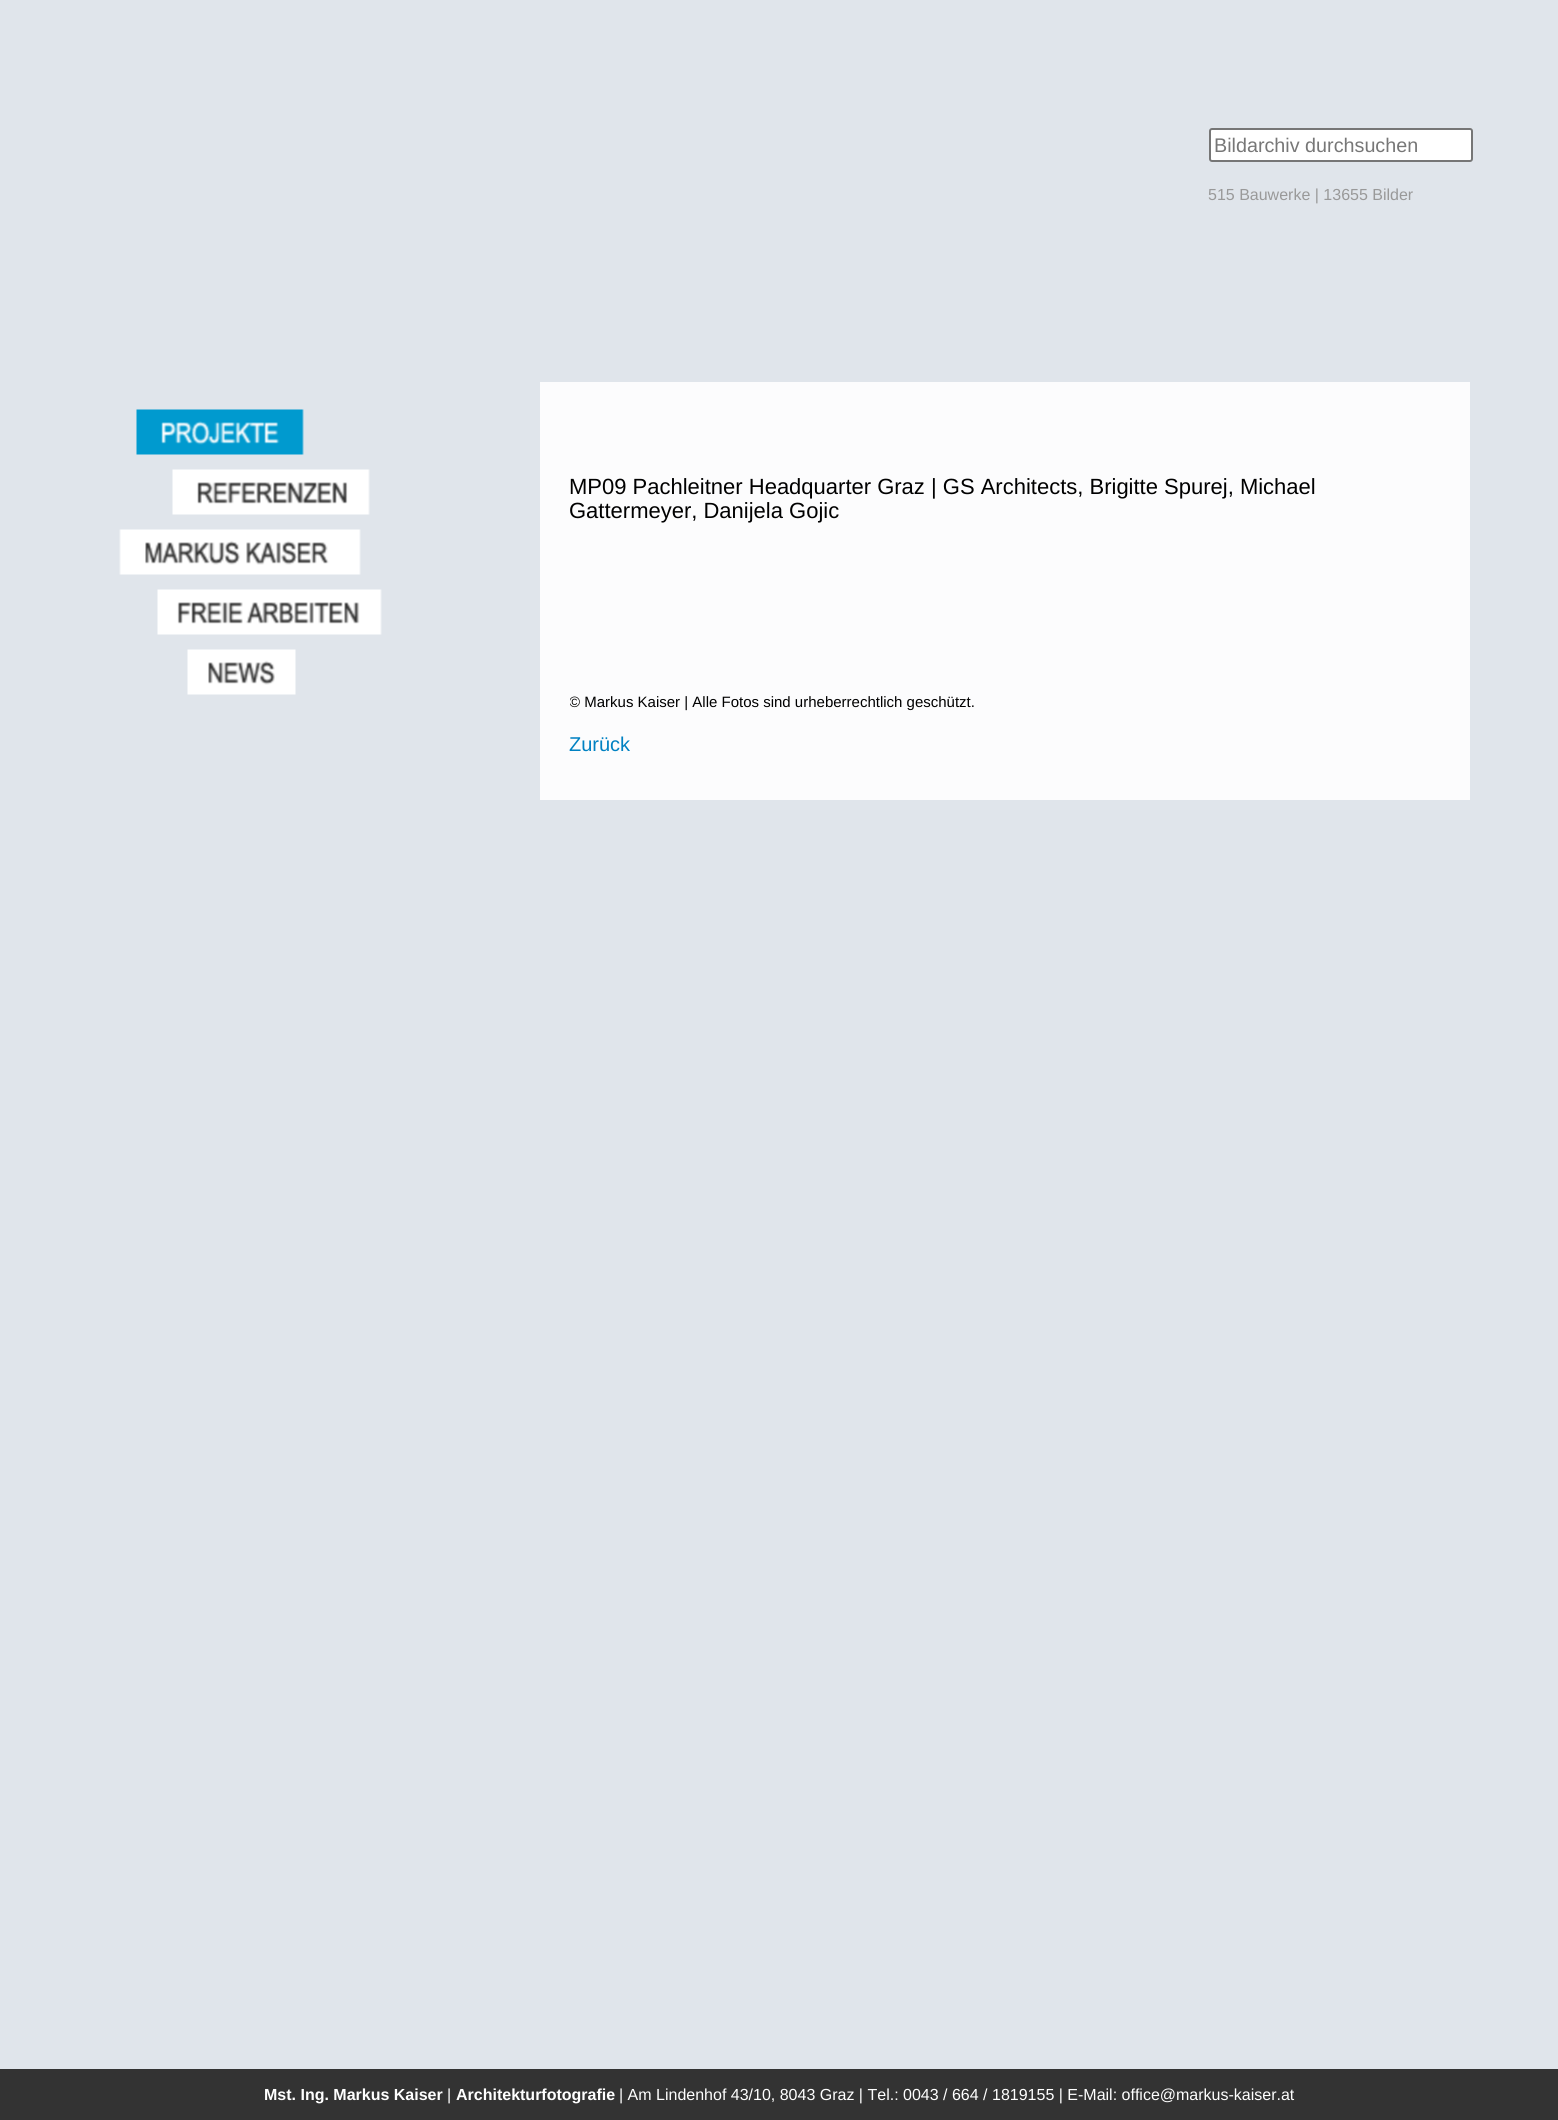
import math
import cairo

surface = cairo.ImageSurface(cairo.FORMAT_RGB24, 1558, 2120)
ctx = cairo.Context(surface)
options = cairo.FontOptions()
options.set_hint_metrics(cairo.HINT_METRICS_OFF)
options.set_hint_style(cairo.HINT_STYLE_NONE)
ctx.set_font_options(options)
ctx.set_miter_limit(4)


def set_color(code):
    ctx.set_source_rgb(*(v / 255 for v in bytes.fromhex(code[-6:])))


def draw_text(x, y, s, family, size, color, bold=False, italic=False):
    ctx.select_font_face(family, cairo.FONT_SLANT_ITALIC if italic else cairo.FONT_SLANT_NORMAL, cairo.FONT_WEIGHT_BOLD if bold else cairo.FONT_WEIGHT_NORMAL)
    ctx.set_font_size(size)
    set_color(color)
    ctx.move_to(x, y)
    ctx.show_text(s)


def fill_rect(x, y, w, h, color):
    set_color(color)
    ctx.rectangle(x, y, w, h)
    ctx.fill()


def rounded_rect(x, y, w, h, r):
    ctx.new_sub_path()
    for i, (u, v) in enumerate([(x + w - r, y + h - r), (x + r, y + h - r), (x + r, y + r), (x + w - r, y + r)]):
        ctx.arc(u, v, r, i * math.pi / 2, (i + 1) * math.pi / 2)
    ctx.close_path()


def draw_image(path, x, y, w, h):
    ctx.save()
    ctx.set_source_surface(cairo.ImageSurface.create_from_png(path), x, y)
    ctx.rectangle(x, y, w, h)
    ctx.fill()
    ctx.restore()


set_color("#e0e5eb")
ctx.paint()
set_color("#ffffff")
rounded_rect(1210, 129, 262, 32, 2)
ctx.fill_preserve()
set_color("#767676")
ctx.stroke()
draw_text(1214, 152, "Bildarchiv durchsuchen", "Liberation Sans", 19.75, "#777777")
draw_text(1208, 200, "515 Bauwerke | 13655 Bilder", "Liberation Sans", 16, "#999999")
draw_image("assets/img1.png", 136, 409, 168, 46)
draw_image("assets/img2.png", 172, 469, 198, 46)
draw_image("assets/img3.png", 119, 529, 242, 46)
draw_image("assets/img4.png", 157, 589, 225, 46)
draw_image("assets/img5.png", 187, 649, 109, 46)
fill_rect(540, 382, 930, 418, "#fcfcfd")
draw_text(569, 494, "MP09 Pachleitner Headquarter Graz | GS Architects, Brigitte Spurej, Michael", "Liberation Sans", 22, "#000000")
draw_text(569, 518, "Gattermeyer, Danijela Gojic", "Liberation Sans", 22, "#000000")
ctx.save()
ctx.rectangle(570, 456, 870, 276)
ctx.clip()
draw_text(569, 707, "© Markus Kaiser | Alle Fotos sind urheberrechtlich geschützt.", "Liberation Sans", 15, "#000000")
ctx.restore()
draw_text(569, 751, "Zurück", "Liberation Sans", 20, "#0081c2")
fill_rect(0, 2069, 1558, 51, "#333333")
draw_text(264, 2100, "Mst. Ing. Markus Kaiser", "Liberation Sans", 16, "#ffffff", bold=True)
draw_text(447, 2100, "|", "Liberation Sans", 16, "#ffffff")
draw_text(456, 2100, "Architekturfotografie", "Liberation Sans", 16, "#ffffff", bold=True)
draw_text(619, 2100, "| Am Lindenhof 43/10, 8043 Graz | Tel.: 0043 / 664 / 1819155 | E-Mail: office@markus-kaiser.at", "Liberation Sans", 16, "#ffffff")
surface.write_to_png("output.png")
